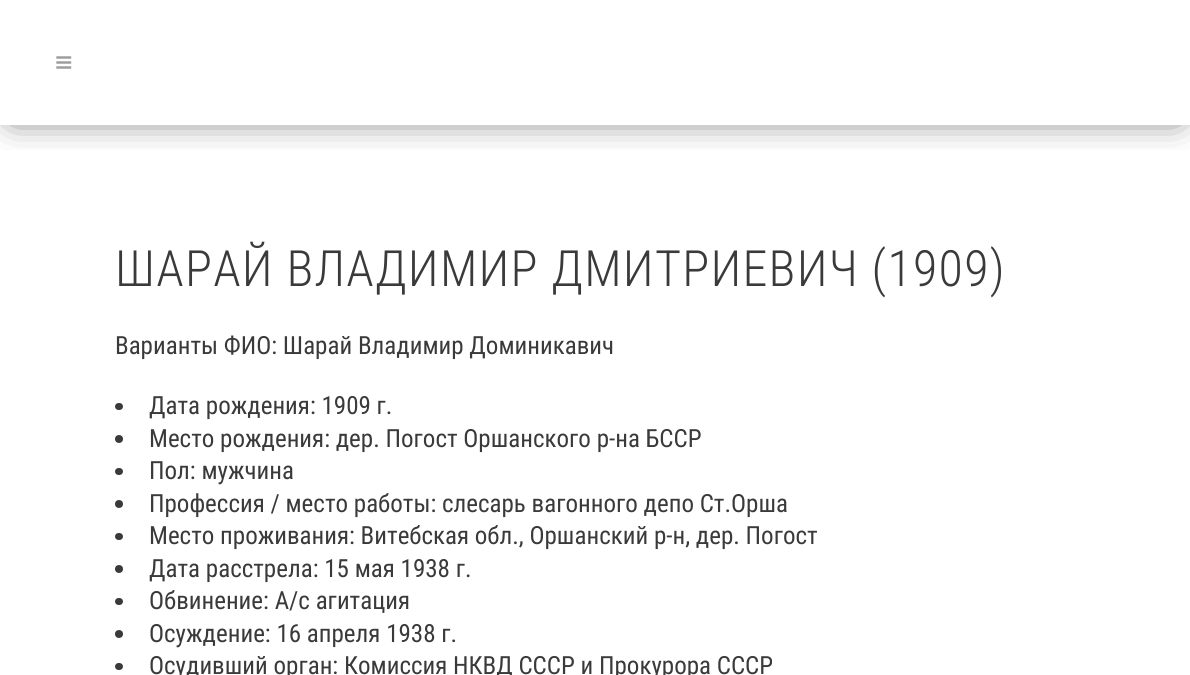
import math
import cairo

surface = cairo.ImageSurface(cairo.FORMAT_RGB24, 1190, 675)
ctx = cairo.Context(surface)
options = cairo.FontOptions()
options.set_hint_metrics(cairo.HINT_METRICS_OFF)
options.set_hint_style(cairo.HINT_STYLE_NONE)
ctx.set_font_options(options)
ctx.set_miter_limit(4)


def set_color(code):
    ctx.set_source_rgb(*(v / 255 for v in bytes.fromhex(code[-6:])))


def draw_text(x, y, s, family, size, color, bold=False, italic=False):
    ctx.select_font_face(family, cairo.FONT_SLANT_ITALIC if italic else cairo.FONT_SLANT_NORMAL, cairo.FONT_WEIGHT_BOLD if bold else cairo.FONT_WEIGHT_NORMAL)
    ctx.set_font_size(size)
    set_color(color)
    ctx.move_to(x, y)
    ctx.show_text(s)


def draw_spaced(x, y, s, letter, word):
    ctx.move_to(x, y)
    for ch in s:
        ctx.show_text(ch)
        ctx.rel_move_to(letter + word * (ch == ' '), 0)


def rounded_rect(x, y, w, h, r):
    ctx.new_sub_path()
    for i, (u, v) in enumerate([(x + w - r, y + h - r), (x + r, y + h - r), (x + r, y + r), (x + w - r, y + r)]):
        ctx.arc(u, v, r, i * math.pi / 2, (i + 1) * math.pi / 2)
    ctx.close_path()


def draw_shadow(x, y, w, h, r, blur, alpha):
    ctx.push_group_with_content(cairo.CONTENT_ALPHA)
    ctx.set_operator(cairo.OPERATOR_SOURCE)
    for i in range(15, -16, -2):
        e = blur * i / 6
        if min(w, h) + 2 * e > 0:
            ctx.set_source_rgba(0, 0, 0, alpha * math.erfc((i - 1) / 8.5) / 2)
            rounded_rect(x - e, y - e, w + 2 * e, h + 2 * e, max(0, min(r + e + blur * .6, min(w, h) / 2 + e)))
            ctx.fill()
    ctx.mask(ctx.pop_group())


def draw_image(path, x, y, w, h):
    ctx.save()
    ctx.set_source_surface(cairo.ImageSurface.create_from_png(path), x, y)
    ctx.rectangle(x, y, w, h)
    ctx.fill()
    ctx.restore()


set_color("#ffffff")
ctx.paint()
ctx.save()
ctx.rectangle(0, 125, 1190, 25)
ctx.clip()
set_color("#000000")
draw_shadow(13, 15, 1165, 100, 0, 18, 0.75)
ctx.restore()
draw_image("assets/img1.png", 56, 56, 16, 13)
ctx.select_font_face("Roboto Condensed Light")
ctx.set_font_size(50)
set_color("#3a3a3a")
draw_spaced(115, 286, "ШАРАЙ ВЛАДИМИР ДМИТРИЕВИЧ (1909)", 1.25, 0)
draw_text(115, 354, "Варианты ФИО: Шарай Владимир Доминикавич", "Roboto Condensed", 25, "#3a3a3a")
rounded_rect(115, 403, 8, 7, 3.5)
ctx.fill()
draw_text(149, 414, "Дата рождения: 1909 г.", "Roboto Condensed", 25, "#3a3a3a")
ctx.new_path()
ctx.arc(119, 439, 4, 0, 2 * math.pi)
ctx.fill()
draw_text(149, 447, "Место рождения: дер. Погост Оршанского р-на БССР", "Roboto Condensed", 25, "#3a3a3a")
rounded_rect(115, 468, 8, 7, 3.5)
ctx.fill()
draw_text(149, 479, "Пол: мужчина", "Roboto Condensed", 25, "#3a3a3a")
ctx.new_path()
ctx.arc(119, 504, 4, 0, 2 * math.pi)
ctx.fill()
draw_text(149, 512, "Профессия / место работы: слесарь вагонного депо Ст.Орша", "Roboto Condensed", 25, "#3a3a3a")
rounded_rect(115, 533, 8, 7, 3.5)
ctx.fill()
draw_text(149, 544, "Место проживания: Витебская обл., Оршанский р-н, дер. Погост", "Roboto Condensed", 25, "#3a3a3a")
ctx.new_path()
ctx.arc(119, 569, 4, 0, 2 * math.pi)
ctx.fill()
draw_text(149, 577, "Дата расстрела: 15 мая 1938 г.", "Roboto Condensed", 25, "#3a3a3a")
rounded_rect(115, 598, 8, 7, 3.5)
ctx.fill()
draw_text(149, 609, "Обвинение: А/с агитация", "Roboto Condensed", 25, "#3a3a3a")
ctx.new_path()
ctx.arc(119, 634, 4, 0, 2 * math.pi)
ctx.fill()
draw_text(149, 642, "Осуждение: 16 апреля 1938 г.", "Roboto Condensed", 25, "#3a3a3a")
rounded_rect(115, 663, 8, 7, 3.5)
ctx.fill()
draw_text(149, 674, "Осудивший орган: Комиссия НКВД СССР и Прокурора СССР", "Roboto Condensed", 25, "#3a3a3a")
surface.write_to_png("output.png")
